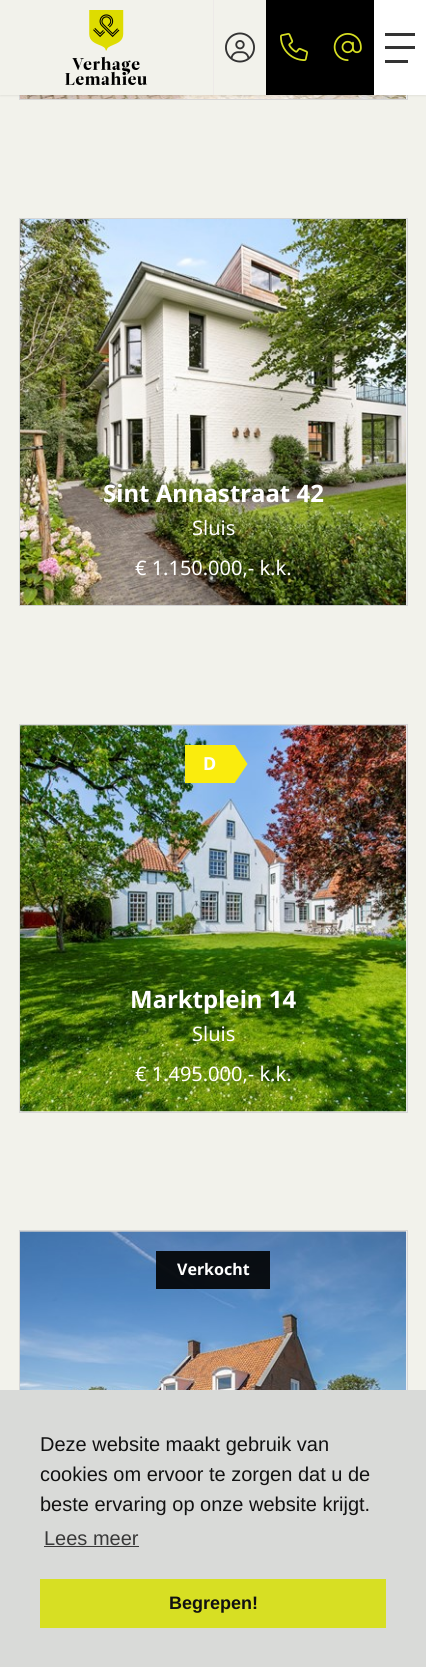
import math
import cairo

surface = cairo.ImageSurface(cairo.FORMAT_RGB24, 426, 1667)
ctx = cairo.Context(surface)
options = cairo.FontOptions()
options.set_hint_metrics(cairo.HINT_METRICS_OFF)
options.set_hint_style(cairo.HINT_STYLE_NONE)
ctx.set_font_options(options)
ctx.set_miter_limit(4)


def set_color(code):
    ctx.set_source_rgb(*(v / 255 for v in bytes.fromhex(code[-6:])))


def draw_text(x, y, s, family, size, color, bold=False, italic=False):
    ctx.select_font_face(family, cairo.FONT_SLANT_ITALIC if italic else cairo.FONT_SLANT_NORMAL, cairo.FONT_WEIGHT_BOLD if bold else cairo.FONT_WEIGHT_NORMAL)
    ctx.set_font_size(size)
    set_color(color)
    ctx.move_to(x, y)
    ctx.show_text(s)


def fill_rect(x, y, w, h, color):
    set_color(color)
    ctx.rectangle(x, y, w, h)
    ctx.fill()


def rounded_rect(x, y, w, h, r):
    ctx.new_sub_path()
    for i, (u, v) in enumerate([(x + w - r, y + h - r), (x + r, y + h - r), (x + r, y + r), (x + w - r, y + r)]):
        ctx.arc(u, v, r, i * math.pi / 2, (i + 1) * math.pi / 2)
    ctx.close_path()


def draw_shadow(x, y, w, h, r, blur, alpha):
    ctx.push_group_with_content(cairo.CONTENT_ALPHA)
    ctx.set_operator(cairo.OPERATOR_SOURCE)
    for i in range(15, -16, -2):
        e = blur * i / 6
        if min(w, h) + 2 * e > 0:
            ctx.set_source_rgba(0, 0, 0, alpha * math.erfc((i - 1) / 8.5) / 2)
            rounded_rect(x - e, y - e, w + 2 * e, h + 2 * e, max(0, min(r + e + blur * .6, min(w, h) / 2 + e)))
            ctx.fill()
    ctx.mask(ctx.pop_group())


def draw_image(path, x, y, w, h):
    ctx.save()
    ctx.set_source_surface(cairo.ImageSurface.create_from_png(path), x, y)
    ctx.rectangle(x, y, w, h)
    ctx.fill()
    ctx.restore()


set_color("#f2f2eb")
ctx.paint()
fill_rect(406, 95, 1, 4, "#f2f2f2")
ctx.rectangle(19.5, -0.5, 388, 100)
set_color("#d6d6d6")
ctx.set_line_width(1)
ctx.stroke()
draw_image("assets/img5.png", 20, 95, 387, 4)
set_color("#000000")
draw_shadow(0, 1, 426, 95, 0, 1, 0.07)
fill_rect(0, 0, 266, 95, "#f2f2eb")
draw_image("assets/img1.png", 65, 10, 83, 75)
fill_rect(213, 0, 1, 95, "#edeae8")
draw_image("assets/img2.png", 225, 32, 30, 31)
fill_rect(266, 0, 108, 95, "#000000")
draw_image("assets/img3.png", 280, 33, 28, 28)
fill_rect(374, 0, 52, 95, "#ffffff")
fill_rect(385, 33, 30, 3, "#333333")
fill_rect(385, 46, 30, 3, "#333333")
fill_rect(385, 60, 23, 3, "#333333")
draw_image("assets/img4.png", 333, 33, 29, 28)
fill_rect(406, 219, 1, 386, "#f2f2f2")
ctx.rectangle(19.5, 218.5, 388, 387)
set_color("#d6d6d6")
ctx.stroke()
draw_image("assets/img6.png", 20, 219, 387, 387)
draw_text(103, 502, "Sint Annastraat 42", "Noto Sans", 24, "#ffffff", bold=True)
draw_text(192, 535, "Sluis", "Noto Sans", 20, "#ffffff")
draw_text(135, 575, "€ 1.150.000,- k.k.", "Noto Sans", 20, "#ffffff")
set_color("#f2f2f2")
ctx.rectangle(19.5, 724.5, 388, 388)
ctx.fill_preserve()
set_color("#d6d6d6")
ctx.stroke()
fill_rect(20, 725, 386, 1, "#cccccc")
draw_image("assets/img7.png", 20, 725, 387, 387)
fill_rect(185, 745, 50, 38, "#faec0d")
draw_text(203, 770, "D", "Noto Sans", 18, "#ffffff", bold=True)
set_color("#faec0d")
ctx.new_path()
ctx.move_to(235, 782.5)
ctx.line_to(235, 745)
ctx.line_to(247.5, 764)
ctx.close_path()
ctx.fill()
draw_text(130, 1008, "Marktplein 14", "Noto Sans", 24, "#ffffff", bold=True)
draw_text(192, 1041, "Sluis", "Noto Sans", 20, "#ffffff")
draw_text(135, 1081, "€ 1.495.000,- k.k.", "Noto Sans", 20, "#ffffff")
fill_rect(406, 1231, 1, 159, "#f2f2f2")
ctx.rectangle(19.5, 1230.5, 388, 388)
set_color("#d6d6d6")
ctx.stroke()
fill_rect(20, 1231, 386, 1, "#cccccc")
draw_image("assets/img8.png", 20, 1231, 387, 159)
ctx.set_source_rgba(0, 0, 0, 0.9)
ctx.rectangle(156, 1251, 114, 38)
ctx.fill()
draw_text(177, 1275, "Verkocht", "Noto Sans", 16, "#ffffff", bold=True)
fill_rect(0, 1390, 426, 277, "#d9dad8")
draw_text(40, 1451, "Deze website maakt gebruik van", "Liberation Sans", 20, "#111111")
draw_text(40, 1481, "cookies om ervoor te zorgen dat u de", "Liberation Sans", 20, "#111111")
draw_text(40, 1511, "beste ervaring op onze website krijgt.", "Liberation Sans", 20, "#111111")
draw_text(44, 1545, "Lees meer", "Liberation Sans", 20, "#393939")
fill_rect(44, 1546, 95, 1, "#393939")
fill_rect(40, 1579, 346, 49, "#d7df23")
draw_text(169, 1609, "Begrepen!", "Liberation Sans", 18, "#111111", bold=True)
surface.write_to_png("output.png")
